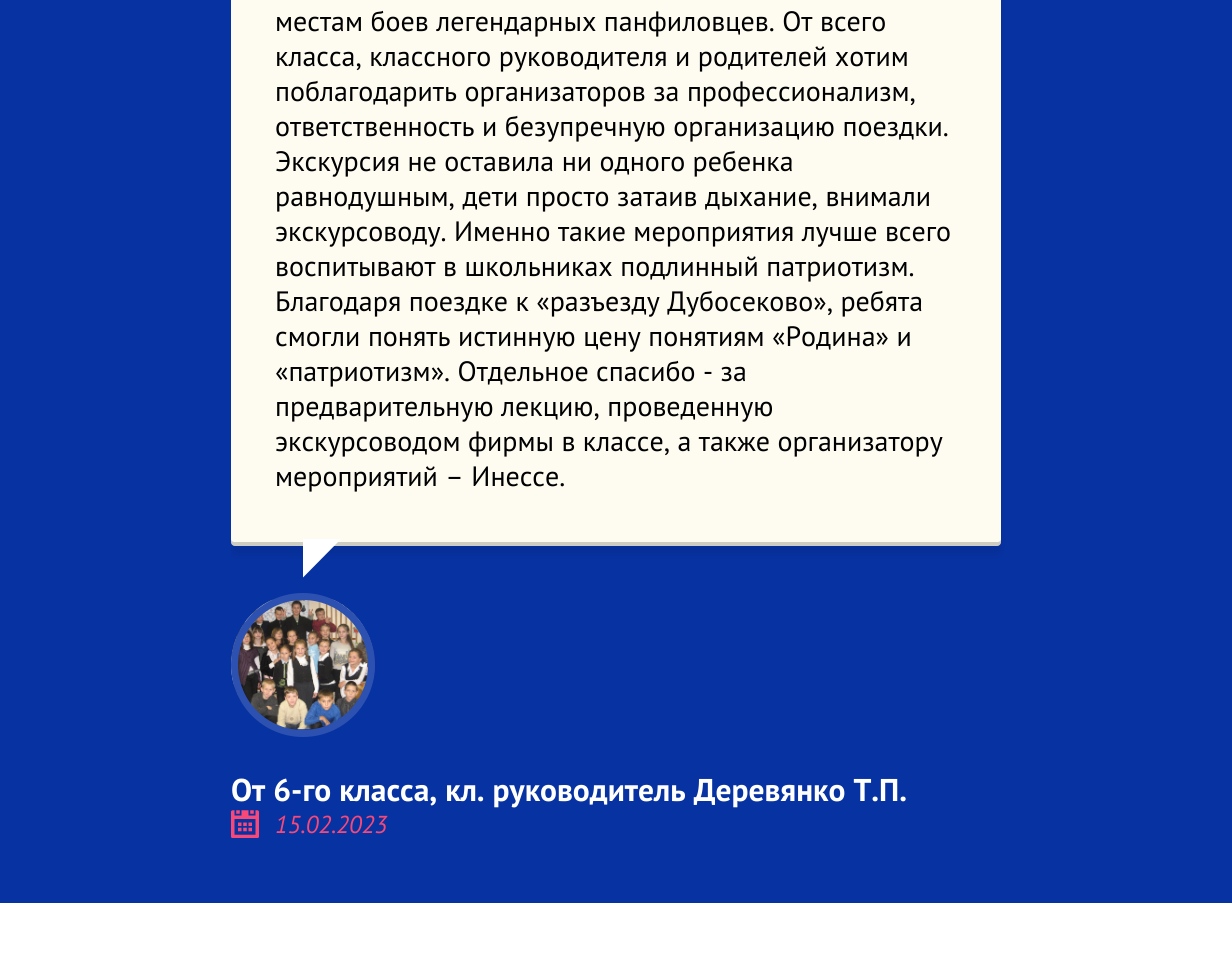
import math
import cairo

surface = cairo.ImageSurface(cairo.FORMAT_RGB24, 1232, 970)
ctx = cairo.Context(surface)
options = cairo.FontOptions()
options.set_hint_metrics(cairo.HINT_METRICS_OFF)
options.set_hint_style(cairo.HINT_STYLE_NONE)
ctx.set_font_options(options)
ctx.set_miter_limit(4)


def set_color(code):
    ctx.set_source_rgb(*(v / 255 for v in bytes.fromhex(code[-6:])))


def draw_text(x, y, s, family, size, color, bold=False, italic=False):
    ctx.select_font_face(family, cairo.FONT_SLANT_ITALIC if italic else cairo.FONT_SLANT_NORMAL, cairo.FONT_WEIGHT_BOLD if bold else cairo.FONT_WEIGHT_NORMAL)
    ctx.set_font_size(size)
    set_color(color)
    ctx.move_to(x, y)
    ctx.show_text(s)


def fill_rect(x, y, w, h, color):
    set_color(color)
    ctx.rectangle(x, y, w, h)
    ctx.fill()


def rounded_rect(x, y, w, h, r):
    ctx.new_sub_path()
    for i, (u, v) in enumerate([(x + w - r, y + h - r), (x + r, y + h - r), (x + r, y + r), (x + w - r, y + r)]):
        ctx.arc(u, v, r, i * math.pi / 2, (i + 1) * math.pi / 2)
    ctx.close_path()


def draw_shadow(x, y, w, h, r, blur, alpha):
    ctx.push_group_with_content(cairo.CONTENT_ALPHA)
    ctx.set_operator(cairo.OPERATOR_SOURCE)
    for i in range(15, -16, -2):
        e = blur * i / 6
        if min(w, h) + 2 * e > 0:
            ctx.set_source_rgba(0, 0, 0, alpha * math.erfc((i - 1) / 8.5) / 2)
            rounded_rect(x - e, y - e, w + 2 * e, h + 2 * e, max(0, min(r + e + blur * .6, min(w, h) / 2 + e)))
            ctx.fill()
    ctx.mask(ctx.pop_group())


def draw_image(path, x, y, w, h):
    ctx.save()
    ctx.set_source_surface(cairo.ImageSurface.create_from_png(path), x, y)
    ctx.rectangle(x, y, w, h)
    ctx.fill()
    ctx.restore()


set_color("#ffffff")
ctx.paint()
fill_rect(0, 0, 1232, 903, "#0732a2")
ctx.save()
ctx.rectangle(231, 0, 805, 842)
ctx.clip()
set_color("#000000")
draw_shadow(231, -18, 770, 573, 4, 4.5, 0.07)
ctx.restore()
set_color("#fefcf1")
rounded_rect(231, -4, 770, 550, 4)
ctx.fill()
ctx.set_source_rgba(0, 0, 0, 0.19)
ctx.new_path()
ctx.move_to(231, 539)
ctx.line_to(231, 542)
ctx.curve_to(231, 544, 233, 546, 235, 546)
ctx.line_to(997, 546)
ctx.curve_to(999, 546, 1001, 544, 1001, 542)
ctx.line_to(1001, 539)
ctx.curve_to(1001, 541, 999, 542, 998, 542)
ctx.line_to(234, 542)
ctx.curve_to(233, 542, 231, 541, 231, 539)
ctx.close_path()
ctx.fill()
draw_text(275, 31, "местам боев легендарных панфиловцев. От всего", "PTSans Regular", 28, "#000000")
draw_text(275, 66, "класса, классного руководителя и родителей хотим", "PTSans Regular", 28, "#000000")
draw_text(275, 101, "поблагодарить организаторов за профессионализм,", "PTSans Regular", 28, "#000000")
draw_text(275, 136, "ответственность и безупречную организацию поездки.", "PTSans Regular", 28, "#000000")
draw_text(275, 171, "Экскурсия не оставила ни одного ребенка", "PTSans Regular", 28, "#000000")
draw_text(275, 206, "равнодушным, дети просто затаив дыхание, внимали", "PTSans Regular", 28, "#000000")
draw_text(275, 241, "экскурсоводу. Именно такие мероприятия лучше всего", "PTSans Regular", 28, "#000000")
draw_text(275, 276, "воспитывают в школьниках подлинный патриотизм.", "PTSans Regular", 28, "#000000")
draw_text(275, 311, "Благодаря поездке к «разъезду Дубосеково», ребята", "PTSans Regular", 28, "#000000")
draw_text(275, 346, "смогли понять истинную цену понятиям «Родина» и", "PTSans Regular", 28, "#000000")
draw_text(275, 381, "«патриотизм». Отдельное спасибо - за", "PTSans Regular", 28, "#000000")
draw_text(275, 416, "предварительную лекцию, проведенную", "PTSans Regular", 28, "#000000")
draw_text(275, 451, "экскурсоводом фирмы в классе, а также организатору", "PTSans Regular", 28, "#000000")
draw_text(275, 486, "мероприятий – Инессе.", "PTSans Regular", 28, "#000000")
set_color("#ffffff")
ctx.new_path()
ctx.move_to(303, 539)
ctx.line_to(341, 539)
ctx.line_to(303, 577.5)
ctx.close_path()
ctx.fill()
draw_image("assets/img1.png", 231, 599, 144, 131)
ctx.arc(303, 665, 68.5, 0, 2 * math.pi)
set_color("#2c51b0")
ctx.set_line_width(7)
ctx.stroke()
draw_text(231, 801, "От 6-го класса, кл. руководитель Деревянко Т.П.", "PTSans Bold", 31.5, "#ffffff", bold=True)
draw_image("assets/img2.png", 231, 810, 28, 28)
draw_text(275, 833, "15.02.2023", "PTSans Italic", 24.5, "#f94877", italic=True)
surface.write_to_png("output.png")
